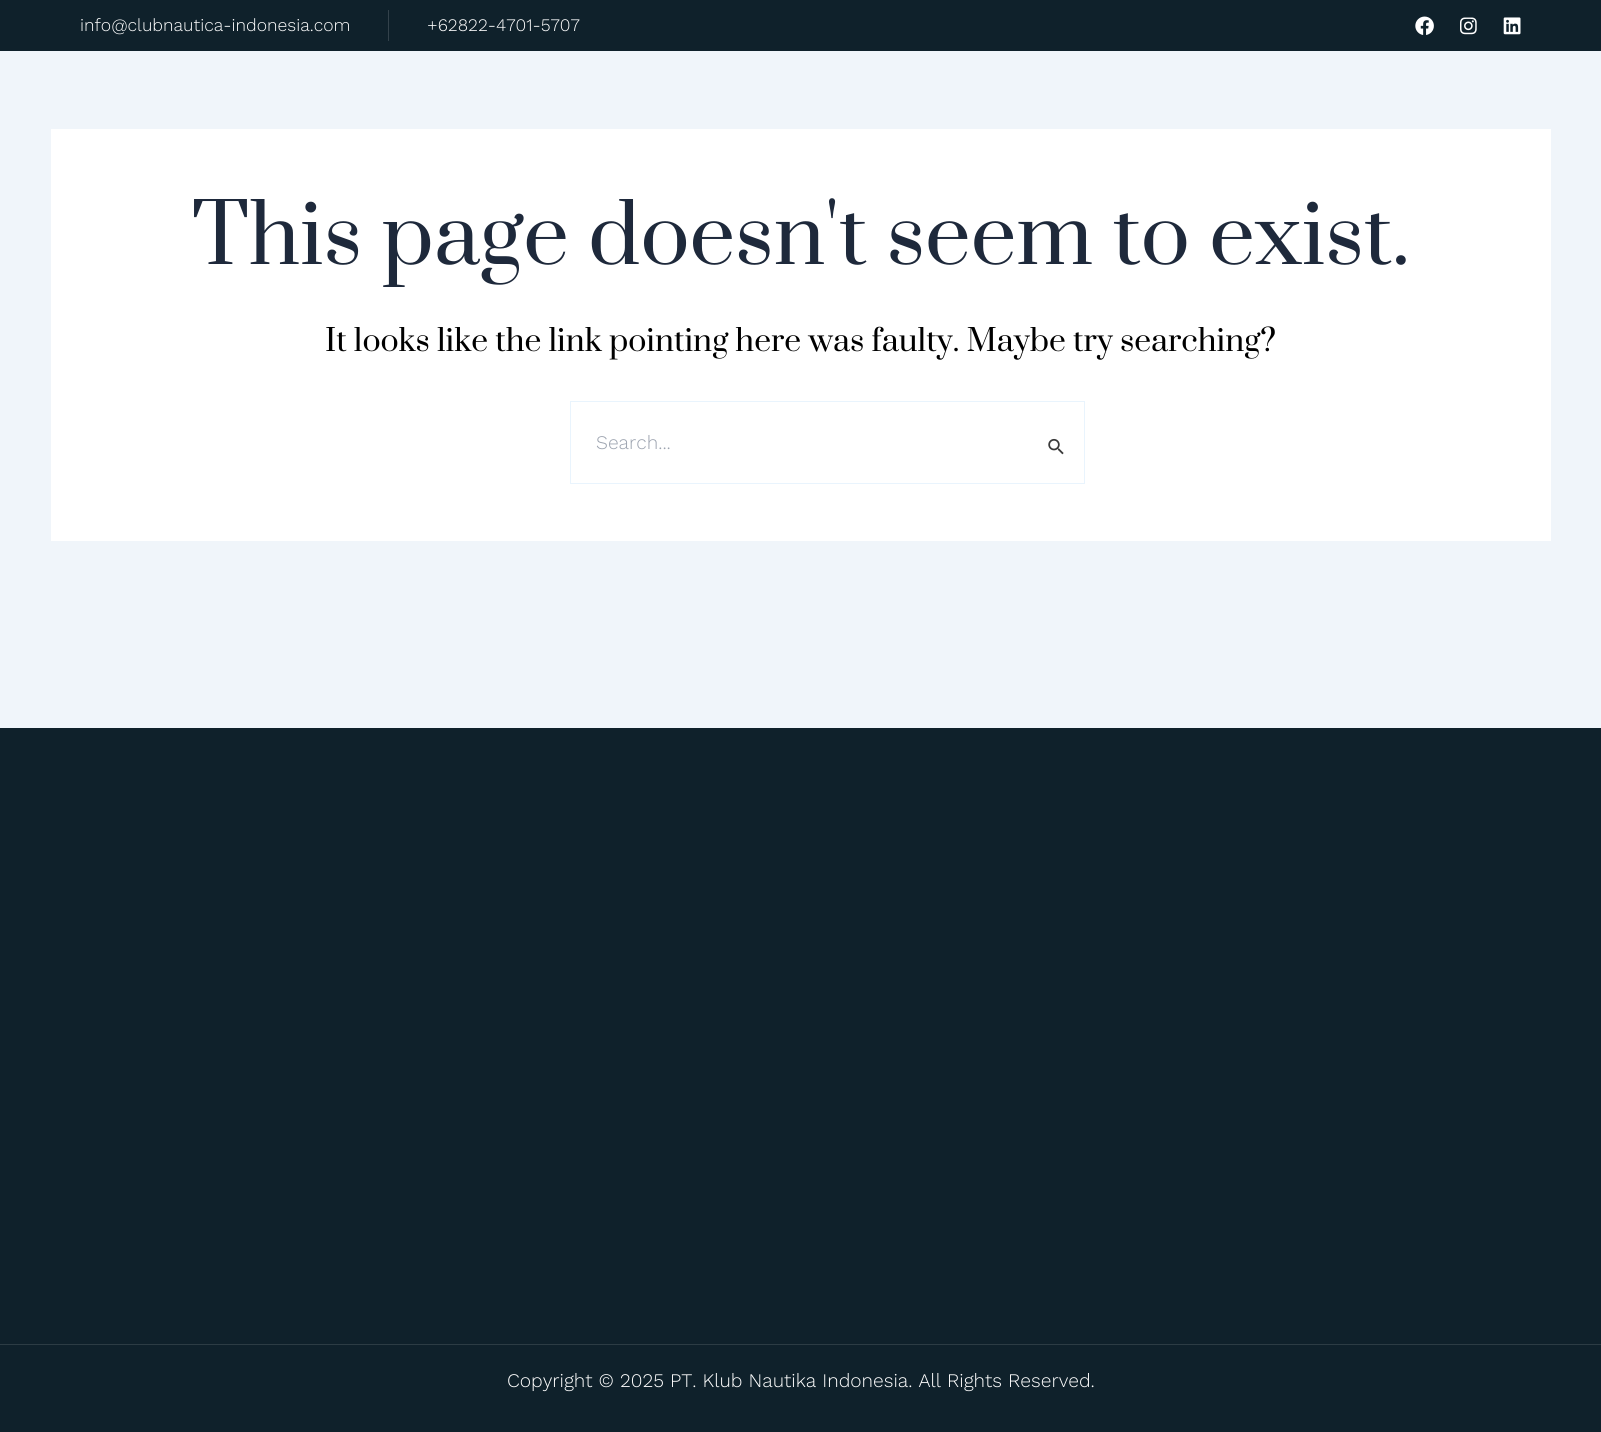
import math
import cairo

surface = cairo.ImageSurface(cairo.FORMAT_RGB24, 1601, 1432)
ctx = cairo.Context(surface)
options = cairo.FontOptions()
options.set_hint_metrics(cairo.HINT_METRICS_OFF)
options.set_hint_style(cairo.HINT_STYLE_NONE)
ctx.set_font_options(options)
ctx.set_miter_limit(4)


def set_color(code):
    ctx.set_source_rgb(*(v / 255 for v in bytes.fromhex(code[-6:])))


def draw_text(x, y, s, family, size, color, bold=False, italic=False):
    ctx.select_font_face(family, cairo.FONT_SLANT_ITALIC if italic else cairo.FONT_SLANT_NORMAL, cairo.FONT_WEIGHT_BOLD if bold else cairo.FONT_WEIGHT_NORMAL)
    ctx.set_font_size(size)
    set_color(color)
    ctx.move_to(x, y)
    ctx.show_text(s)


def fill_rect(x, y, w, h, color):
    set_color(color)
    ctx.rectangle(x, y, w, h)
    ctx.fill()


def draw_image(path, x, y, w, h):
    ctx.save()
    ctx.set_source_surface(cairo.ImageSurface.create_from_png(path), x, y)
    ctx.rectangle(x, y, w, h)
    ctx.fill()
    ctx.restore()


set_color("#f0f5fa")
ctx.paint()
fill_rect(0, 0, 1601, 51, "#0f212b")
fill_rect(388, 10, 1, 31, "#33424b")
draw_text(80, 31, "info@clubnautica-indonesia.com", "Work Sans Light", 17.6, "#ffffff")
draw_text(427, 31, "+62822-4701-5707", "Work Sans Light", 17.6, "#ffffff")
draw_image("assets/img1.png", 1415, 16, 19, 19)
draw_image("assets/img2.png", 1460, 17, 17, 18)
draw_image("assets/img3.png", 1503, 17, 18, 18)
fill_rect(51, 129, 1500, 412, "#ffffff")
draw_text(192, 264, "This page doesn't seem to exist.", "Prata", 81.25, "#1e293b")
draw_text(325, 351, "It looks like the link pointing here was faulty. Maybe try searching?", "Prata", 30, "#000000")
ctx.rectangle(570.5, 401.5, 514, 82)
ctx.set_source_rgba(0.494, 0.757, 0.953, 0.17)
ctx.set_line_width(1)
ctx.stroke()
draw_text(596, 449, "Search...", "Work Sans Light", 19.2, "#9ca3af")
draw_image("assets/img4.png", 1048, 438, 16, 17)
fill_rect(0, 728, 1601, 616, "#0f212b")
fill_rect(0, 1345, 1601, 87, "#0f212b")
fill_rect(0, 1344, 1601, 1, "#2c3c44")
draw_text(507, 1387, "Copyright © 2025 PT. Klub Nautika Indonesia. All Rights Reserved.", "Work Sans Light", 19.2, "#ffffff")
surface.write_to_png("output.png")
